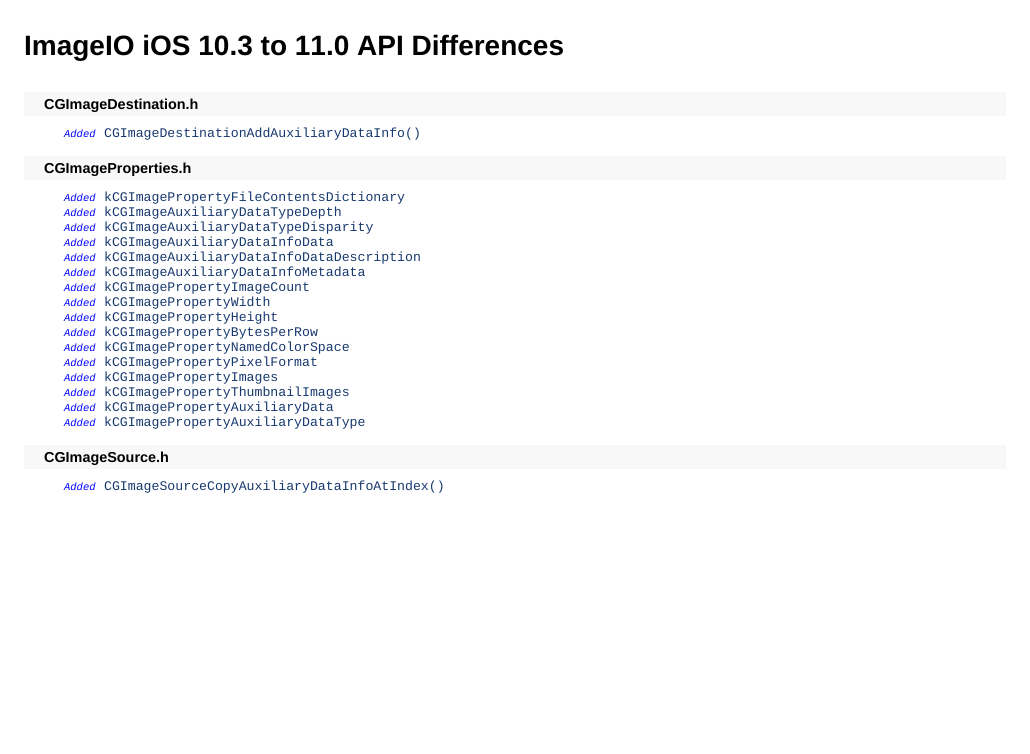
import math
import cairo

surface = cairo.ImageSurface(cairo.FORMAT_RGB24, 1030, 754)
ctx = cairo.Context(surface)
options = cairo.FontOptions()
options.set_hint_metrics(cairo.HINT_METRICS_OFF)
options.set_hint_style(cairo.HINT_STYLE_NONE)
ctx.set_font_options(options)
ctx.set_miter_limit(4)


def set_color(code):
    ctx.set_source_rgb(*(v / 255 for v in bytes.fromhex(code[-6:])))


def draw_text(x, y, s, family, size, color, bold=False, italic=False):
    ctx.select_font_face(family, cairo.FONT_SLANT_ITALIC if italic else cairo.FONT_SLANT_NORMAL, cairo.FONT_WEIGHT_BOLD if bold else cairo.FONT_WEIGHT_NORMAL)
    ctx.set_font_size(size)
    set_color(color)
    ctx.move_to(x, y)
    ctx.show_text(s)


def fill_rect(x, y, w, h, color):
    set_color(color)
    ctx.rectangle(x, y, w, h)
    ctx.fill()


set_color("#ffffff")
ctx.paint()
draw_text(24, 55, "ImageIO iOS 10.3 to 11.0 API Differences", "Liberation Sans", 28, "#000000", bold=True)
fill_rect(24, 92, 982, 24, "#f8f8f8")
draw_text(44, 109, "CGImageDestination.h", "Liberation Sans", 14.4, "#000000", bold=True)
draw_text(64, 137, "Added", "Liberation Mono", 10.5, "#0000ff", italic=True)
draw_text(104, 137, "CGImageDestinationAddAuxiliaryDataInfo()", "Liberation Mono", 13.2, "#18396e")
fill_rect(24, 156, 982, 24, "#f8f8f8")
draw_text(44, 173, "CGImageProperties.h", "Liberation Sans", 14.4, "#000000", bold=True)
draw_text(64, 201, "Added", "Liberation Mono", 10.5, "#0000ff", italic=True)
draw_text(104, 201, "kCGImagePropertyFileContentsDictionary", "Liberation Mono", 13.2, "#18396e")
draw_text(64, 216, "Added", "Liberation Mono", 10.5, "#0000ff", italic=True)
draw_text(104, 216, "kCGImageAuxiliaryDataTypeDepth", "Liberation Mono", 13.2, "#18396e")
draw_text(64, 231, "Added", "Liberation Mono", 10.5, "#0000ff", italic=True)
draw_text(104, 231, "kCGImageAuxiliaryDataTypeDisparity", "Liberation Mono", 13.2, "#18396e")
draw_text(64, 246, "Added", "Liberation Mono", 10.5, "#0000ff", italic=True)
draw_text(104, 246, "kCGImageAuxiliaryDataInfoData", "Liberation Mono", 13.2, "#18396e")
draw_text(64, 261, "Added", "Liberation Mono", 10.5, "#0000ff", italic=True)
draw_text(104, 261, "kCGImageAuxiliaryDataInfoDataDescription", "Liberation Mono", 13.2, "#18396e")
draw_text(64, 276, "Added", "Liberation Mono", 10.5, "#0000ff", italic=True)
draw_text(104, 276, "kCGImageAuxiliaryDataInfoMetadata", "Liberation Mono", 13.2, "#18396e")
draw_text(64, 291, "Added", "Liberation Mono", 10.5, "#0000ff", italic=True)
draw_text(104, 291, "kCGImagePropertyImageCount", "Liberation Mono", 13.2, "#18396e")
draw_text(64, 306, "Added", "Liberation Mono", 10.5, "#0000ff", italic=True)
draw_text(104, 306, "kCGImagePropertyWidth", "Liberation Mono", 13.2, "#18396e")
draw_text(64, 321, "Added", "Liberation Mono", 10.5, "#0000ff", italic=True)
draw_text(104, 321, "kCGImagePropertyHeight", "Liberation Mono", 13.2, "#18396e")
draw_text(64, 336, "Added", "Liberation Mono", 10.5, "#0000ff", italic=True)
draw_text(104, 336, "kCGImagePropertyBytesPerRow", "Liberation Mono", 13.2, "#18396e")
draw_text(64, 351, "Added", "Liberation Mono", 10.5, "#0000ff", italic=True)
draw_text(104, 351, "kCGImagePropertyNamedColorSpace", "Liberation Mono", 13.2, "#18396e")
draw_text(64, 366, "Added", "Liberation Mono", 10.5, "#0000ff", italic=True)
draw_text(104, 366, "kCGImagePropertyPixelFormat", "Liberation Mono", 13.2, "#18396e")
draw_text(64, 381, "Added", "Liberation Mono", 10.5, "#0000ff", italic=True)
draw_text(104, 381, "kCGImagePropertyImages", "Liberation Mono", 13.2, "#18396e")
draw_text(64, 396, "Added", "Liberation Mono", 10.5, "#0000ff", italic=True)
draw_text(104, 396, "kCGImagePropertyThumbnailImages", "Liberation Mono", 13.2, "#18396e")
draw_text(64, 411, "Added", "Liberation Mono", 10.5, "#0000ff", italic=True)
draw_text(104, 411, "kCGImagePropertyAuxiliaryData", "Liberation Mono", 13.2, "#18396e")
draw_text(64, 426, "Added", "Liberation Mono", 10.5, "#0000ff", italic=True)
draw_text(104, 426, "kCGImagePropertyAuxiliaryDataType", "Liberation Mono", 13.2, "#18396e")
fill_rect(24, 445, 982, 24, "#f8f8f8")
draw_text(44, 462, "CGImageSource.h", "Liberation Sans", 14.4, "#000000", bold=True)
draw_text(64, 490, "Added", "Liberation Mono", 10.5, "#0000ff", italic=True)
draw_text(104, 490, "CGImageSourceCopyAuxiliaryDataInfoAtIndex()", "Liberation Mono", 13.2, "#18396e")
surface.write_to_png("output.png")
